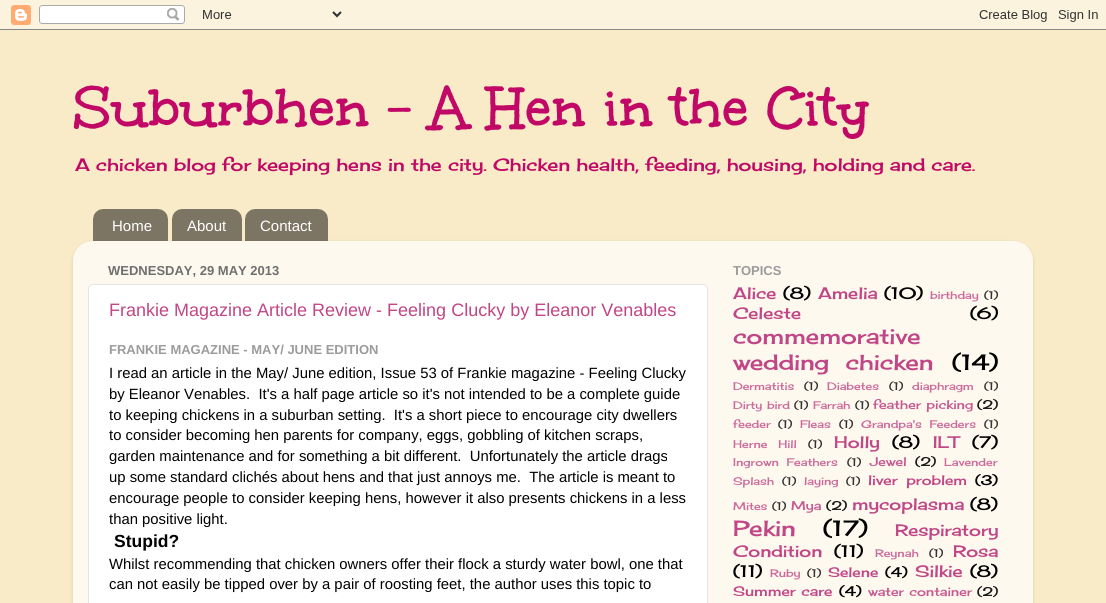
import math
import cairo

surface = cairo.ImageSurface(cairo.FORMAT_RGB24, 1106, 603)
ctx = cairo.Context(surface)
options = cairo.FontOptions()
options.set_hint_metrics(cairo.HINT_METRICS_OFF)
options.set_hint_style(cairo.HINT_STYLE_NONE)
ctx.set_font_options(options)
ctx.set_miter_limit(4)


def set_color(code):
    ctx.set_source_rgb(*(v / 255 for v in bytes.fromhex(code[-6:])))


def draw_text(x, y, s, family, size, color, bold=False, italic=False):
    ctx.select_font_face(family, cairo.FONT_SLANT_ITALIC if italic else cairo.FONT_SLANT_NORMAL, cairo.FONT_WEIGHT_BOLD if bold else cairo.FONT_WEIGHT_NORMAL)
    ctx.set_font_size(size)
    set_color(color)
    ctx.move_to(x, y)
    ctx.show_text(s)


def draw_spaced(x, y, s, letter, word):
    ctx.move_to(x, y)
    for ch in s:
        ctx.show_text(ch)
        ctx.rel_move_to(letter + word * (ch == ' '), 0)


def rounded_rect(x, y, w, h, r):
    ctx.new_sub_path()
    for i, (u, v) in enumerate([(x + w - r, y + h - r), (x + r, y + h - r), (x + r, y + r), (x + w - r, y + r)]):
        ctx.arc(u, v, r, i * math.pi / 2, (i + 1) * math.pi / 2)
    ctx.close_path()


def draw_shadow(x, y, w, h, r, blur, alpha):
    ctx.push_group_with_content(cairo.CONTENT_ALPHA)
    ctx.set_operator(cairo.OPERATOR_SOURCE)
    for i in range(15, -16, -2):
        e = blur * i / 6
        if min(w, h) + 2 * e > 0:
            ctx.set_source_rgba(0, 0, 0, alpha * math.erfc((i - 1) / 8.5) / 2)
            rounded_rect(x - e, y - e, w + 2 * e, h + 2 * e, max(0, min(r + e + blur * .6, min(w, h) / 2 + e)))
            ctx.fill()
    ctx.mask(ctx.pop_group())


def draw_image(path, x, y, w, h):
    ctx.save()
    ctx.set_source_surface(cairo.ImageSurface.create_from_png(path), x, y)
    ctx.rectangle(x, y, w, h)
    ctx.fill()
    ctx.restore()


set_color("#f9ebc8")
ctx.paint()
draw_image("assets/img1.png", 0, 0, 1106, 30)
draw_text(73, 129, "Suburbhen - A Hen in the City", "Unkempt", 60, "#c10867", bold=True)
draw_text(75, 171, "A chicken blog for keeping hens in the city. Chicken health, feeding, housing, holding and care.", "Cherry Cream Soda", 17.55, "#c10867")
draw_image("assets/img2.png", 93, 209, 75, 32)
draw_text(112, 231, "Home", "Liberation Sans", 15, "#ffffff")
draw_image("assets/img3.png", 172, 209, 70, 32)
draw_text(187, 231, "About", "Liberation Sans", 15, "#ffffff")
draw_image("assets/img4.png", 245, 209, 83, 32)
draw_text(260, 231, "Contact", "Liberation Sans", 15, "#ffffff")
ctx.save()
ctx.set_fill_rule(cairo.FILL_RULE_EVEN_ODD)
ctx.new_path()
ctx.move_to(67, 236)
ctx.line_to(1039, 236)
ctx.line_to(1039, 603)
ctx.line_to(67, 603)
ctx.close_path()
ctx.move_to(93, 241)
ctx.line_to(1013, 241)
ctx.curve_to(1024, 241, 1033, 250, 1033, 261)
ctx.line_to(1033, 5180)
ctx.line_to(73, 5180)
ctx.line_to(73, 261)
ctx.curve_to(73, 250, 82, 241, 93, 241)
ctx.close_path()
ctx.clip()
set_color("#000000")
draw_shadow(73, 242, 960, 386, 20, 1.5, 0.15)
ctx.restore()
draw_image("assets/img5.png", 73, 241, 960, 362)
draw_text(108, 275, "WEDNESDAY, 29 MAY 2013", "Liberation Sans", 13, "#6f6f6f", bold=True)
set_color("#ffffff")
rounded_rect(88.5, 284.5, 619, 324, 4.5)
ctx.fill_preserve()
set_color("#e5e5e5")
ctx.set_line_width(1)
ctx.stroke()
draw_text(109, 316, "Frankie Magazine Article Review - Feeling Clucky by Eleanor Venables", "Liberation Sans", 18, "#c14685")
draw_text(109, 354, "FRANKIE MAGAZINE - MAY/ JUNE EDITION", "Liberation Sans", 13, "#9b9b9b", bold=True)
draw_text(109, 378, "I read an article in the May/ June edition, Issue 53 of Frankie magazine - Feeling Clucky", "Liberation Sans", 14.85, "#000000")
draw_text(109, 399, "by Eleanor Venables.  It's a half page article so it's not intended to be a complete guide", "Liberation Sans", 14.85, "#000000")
draw_text(109, 420, "to keeping chickens in a suburban setting.  It's a short piece to encourage city dwellers", "Liberation Sans", 14.85, "#000000")
draw_text(109, 440, "to consider becoming hen parents for company, eggs, gobbling of kitchen scraps,", "Liberation Sans", 14.85, "#000000")
draw_text(109, 461, "garden maintenance and for something a bit different.  Unfortunately the article drags", "Liberation Sans", 14.85, "#000000")
draw_text(109, 482, "up some standard clichés about hens and that just annoys me.  The article is meant to", "Liberation Sans", 14.85, "#000000")
draw_text(109, 503, "encourage people to consider keeping hens, however it also presents chickens in a less", "Liberation Sans", 14.85, "#000000")
draw_text(109, 524, "than positive light.", "Liberation Sans", 14.85, "#000000")
draw_text(114, 547, "Stupid?", "Liberation Sans", 17.5, "#000000", bold=True)
draw_text(109, 569, "Whilst recommending that chicken owners offer their flock a sturdy water bowl, one that", "Liberation Sans", 14.85, "#000000")
draw_text(109, 589, "can not easily be tipped over by a pair of roosting feet, the author uses this topic to", "Liberation Sans", 14.85, "#000000")
draw_text(733, 275, "TOPICS", "Liberation Sans", 13, "#9b9b9b", bold=True)
draw_text(733, 299, "Alice", "Cherry Cream Soda", 16.25, "#c14685")
draw_text(783, 299, "(8)", "Cherry Cream Soda", 16.25, "#000000")
draw_text(818, 299, "Amelia", "Cherry Cream Soda", 16.25, "#c14685")
draw_text(884, 299, "(10)", "Cherry Cream Soda", 16.25, "#000000")
draw_text(930, 299, "birthday", "Cherry Cream Soda", 10.75, "#cd6a9a")
draw_text(984, 299, "(1)", "Cherry Cream Soda", 10.75, "#333230")
draw_text(733, 319, "Celeste", "Cherry Cream Soda", 16.25, "#c14685")
draw_text(970, 319, "(6)", "Cherry Cream Soda", 16.25, "#000000")
draw_text(733, 344, "commemorative", "Cherry Cream Soda", 21.5, "#c14685")
draw_spaced(733, 370, "wedding chicken", 0, 9)
draw_text(952, 370, "(14)", "Cherry Cream Soda", 21.5, "#000000")
draw_text(733, 390, "Dermatitis", "Cherry Cream Soda", 10.75, "#cd6a9a")
draw_text(804, 390, "(1)", "Cherry Cream Soda", 10.75, "#333230")
draw_text(827, 390, "Diabetes", "Cherry Cream Soda", 10.75, "#cd6a9a")
draw_text(889, 390, "(1)", "Cherry Cream Soda", 10.75, "#333230")
draw_text(912, 390, "diaphragm", "Cherry Cream Soda", 10.75, "#cd6a9a")
draw_text(984, 390, "(1)", "Cherry Cream Soda", 10.75, "#333230")
set_color("#cd6a9a")
draw_spaced(733, 409, "Dirty bird", 0, 1)
draw_text(794, 409, "(1)", "Cherry Cream Soda", 10.75, "#333230")
draw_text(813, 409, "Farrah", "Cherry Cream Soda", 10.75, "#cd6a9a")
draw_text(855, 409, "(1)", "Cherry Cream Soda", 10.75, "#333230")
ctx.set_font_size(12.25)
set_color("#c75890")
draw_spaced(873, 409, "feather picking", 0, 1)
draw_text(977, 409, "(2)", "Cherry Cream Soda", 12.25, "#191918")
draw_text(733, 428, "feeder", "Cherry Cream Soda", 10.75, "#cd6a9a")
draw_text(778, 428, "(1)", "Cherry Cream Soda", 10.75, "#333230")
draw_text(800, 428, "Fleas", "Cherry Cream Soda", 10.75, "#cd6a9a")
draw_text(839, 428, "(1)", "Cherry Cream Soda", 10.75, "#333230")
set_color("#cd6a9a")
draw_spaced(861, 428, "Grandpa's Feeders", 0, 4)
draw_text(984, 428, "(1)", "Cherry Cream Soda", 10.75, "#333230")
set_color("#cd6a9a")
draw_spaced(733, 448, "Herne Hill", 0, 7)
draw_text(808, 448, "(1)", "Cherry Cream Soda", 10.75, "#333230")
draw_text(834, 448, "Holly", "Cherry Cream Soda", 16.25, "#c14685")
draw_text(892, 448, "(8)", "Cherry Cream Soda", 16.25, "#000000")
draw_text(933, 448, "ILT", "Cherry Cream Soda", 16.25, "#c14685")
draw_text(972, 448, "(7)", "Cherry Cream Soda", 16.25, "#000000")
ctx.set_font_size(10.75)
set_color("#cd6a9a")
draw_spaced(733, 466, "Ingrown Feathers", 0, 4)
draw_text(847, 466, "(1)", "Cherry Cream Soda", 10.75, "#333230")
draw_text(870, 466, "Jewel", "Cherry Cream Soda", 12.25, "#c75890")
draw_text(915, 466, "(2)", "Cherry Cream Soda", 12.25, "#191918")
draw_text(944, 466, "Lavender", "Cherry Cream Soda", 10.75, "#cd6a9a")
draw_text(733, 485, "Splash", "Cherry Cream Soda", 10.75, "#cd6a9a")
draw_text(782, 485, "(1)", "Cherry Cream Soda", 10.75, "#333230")
draw_text(804, 485, "laying", "Cherry Cream Soda", 10.75, "#cd6a9a")
draw_text(846, 485, "(1)", "Cherry Cream Soda", 10.75, "#333230")
ctx.set_font_size(13.5)
set_color("#c14685")
draw_spaced(868, 485, "liver problem", 0, 4)
draw_text(975, 485, "(3)", "Cherry Cream Soda", 13.5, "#000000")
draw_text(733, 510, "Mites", "Cherry Cream Soda", 10.75, "#cd6a9a")
draw_text(772, 510, "(1)", "Cherry Cream Soda", 10.75, "#333230")
draw_text(791, 510, "Mya", "Cherry Cream Soda", 12.25, "#c75890")
draw_text(826, 510, "(2)", "Cherry Cream Soda", 12.25, "#191918")
draw_text(852, 510, "mycoplasma", "Cherry Cream Soda", 16.25, "#c14685")
draw_text(970, 510, "(8)", "Cherry Cream Soda", 16.25, "#000000")
draw_text(733, 536, "Pekin", "Cherry Cream Soda", 21.5, "#c14685")
draw_text(823, 536, "(17)", "Cherry Cream Soda", 21.5, "#000000")
draw_text(895, 536, "Respiratory", "Cherry Cream Soda", 16.25, "#c14685")
draw_text(733, 557, "Condition", "Cherry Cream Soda", 16.25, "#c14685")
draw_text(834, 557, "(11)", "Cherry Cream Soda", 16.25, "#000000")
draw_text(875, 557, "Reynah", "Cherry Cream Soda", 10.75, "#cd6a9a")
draw_text(929, 557, "(1)", "Cherry Cream Soda", 10.75, "#333230")
draw_text(953, 557, "Rosa", "Cherry Cream Soda", 16.25, "#c14685")
draw_text(733, 577, "(11)", "Cherry Cream Soda", 16.25, "#000000")
draw_text(770, 577, "Ruby", "Cherry Cream Soda", 10.75, "#cd6a9a")
draw_text(807, 577, "(1)", "Cherry Cream Soda", 10.75, "#333230")
draw_text(828, 577, "Selene", "Cherry Cream Soda", 13.5, "#c14685")
draw_text(885, 577, "(4)", "Cherry Cream Soda", 13.5, "#000000")
draw_text(915, 577, "Silkie", "Cherry Cream Soda", 16.25, "#c14685")
draw_text(970, 577, "(8)", "Cherry Cream Soda", 16.25, "#000000")
ctx.set_font_size(13.5)
set_color("#c14685")
draw_spaced(733, 596, "Summer care", 0, 1)
draw_text(839, 596, "(4)", "Cherry Cream Soda", 13.5, "#000000")
ctx.set_font_size(12.25)
set_color("#c75890")
draw_spaced(868, 596, "water container", 0, 1)
draw_text(977, 596, "(2)", "Cherry Cream Soda", 12.25, "#191918")
surface.write_to_png("output.png")
